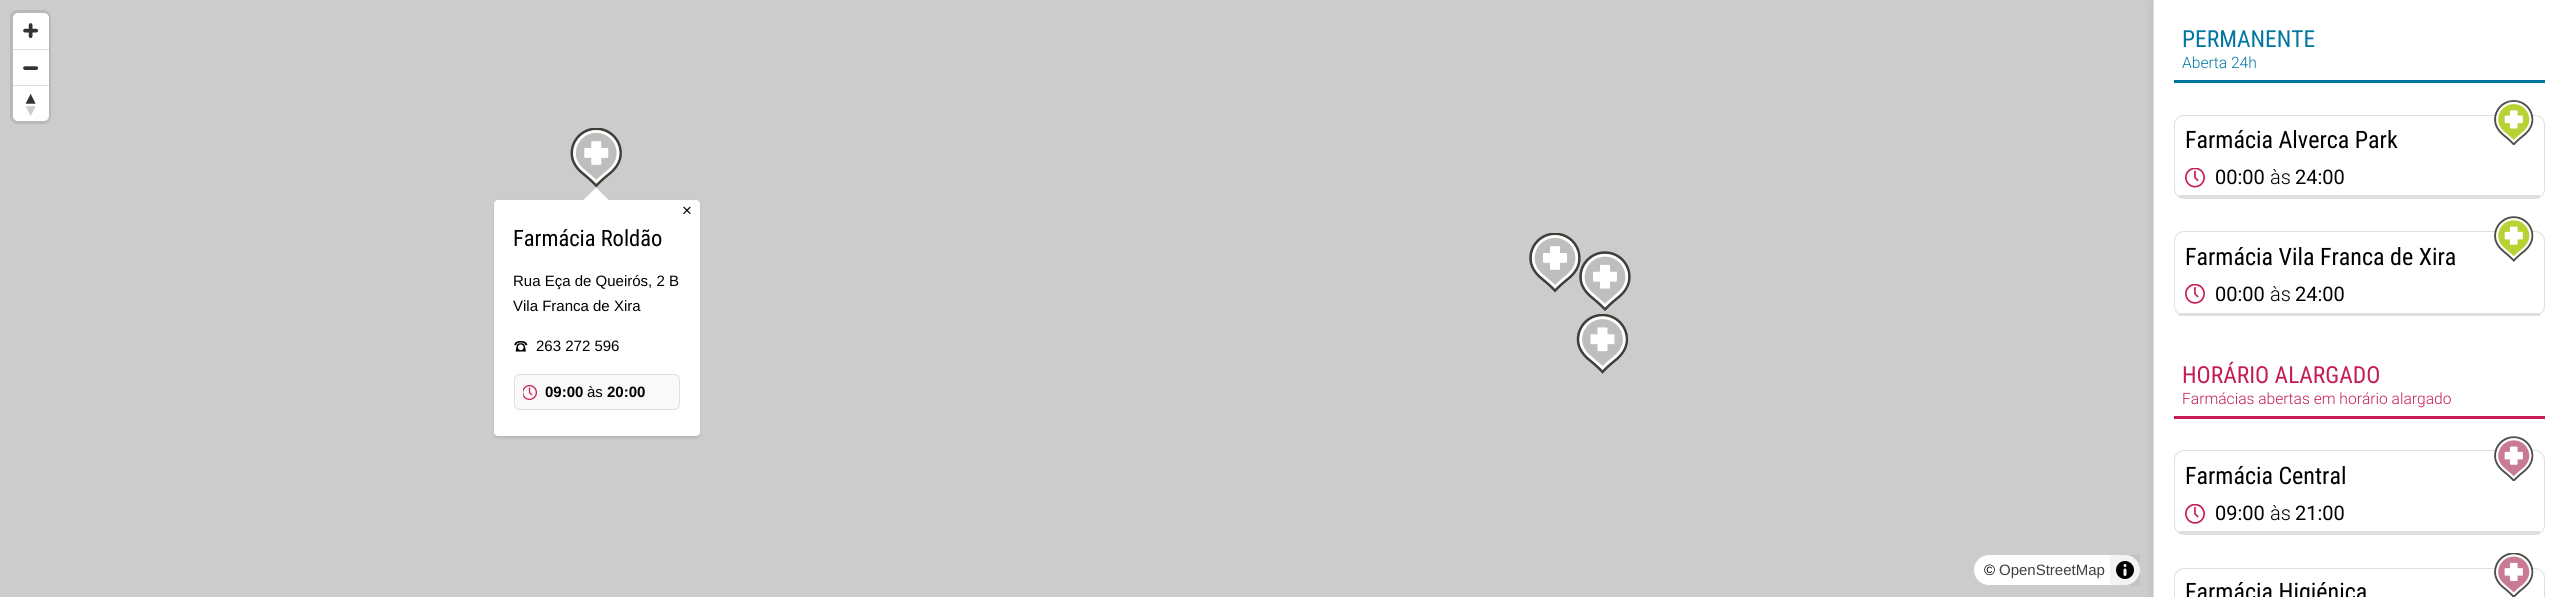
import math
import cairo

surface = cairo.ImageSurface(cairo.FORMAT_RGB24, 2565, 597)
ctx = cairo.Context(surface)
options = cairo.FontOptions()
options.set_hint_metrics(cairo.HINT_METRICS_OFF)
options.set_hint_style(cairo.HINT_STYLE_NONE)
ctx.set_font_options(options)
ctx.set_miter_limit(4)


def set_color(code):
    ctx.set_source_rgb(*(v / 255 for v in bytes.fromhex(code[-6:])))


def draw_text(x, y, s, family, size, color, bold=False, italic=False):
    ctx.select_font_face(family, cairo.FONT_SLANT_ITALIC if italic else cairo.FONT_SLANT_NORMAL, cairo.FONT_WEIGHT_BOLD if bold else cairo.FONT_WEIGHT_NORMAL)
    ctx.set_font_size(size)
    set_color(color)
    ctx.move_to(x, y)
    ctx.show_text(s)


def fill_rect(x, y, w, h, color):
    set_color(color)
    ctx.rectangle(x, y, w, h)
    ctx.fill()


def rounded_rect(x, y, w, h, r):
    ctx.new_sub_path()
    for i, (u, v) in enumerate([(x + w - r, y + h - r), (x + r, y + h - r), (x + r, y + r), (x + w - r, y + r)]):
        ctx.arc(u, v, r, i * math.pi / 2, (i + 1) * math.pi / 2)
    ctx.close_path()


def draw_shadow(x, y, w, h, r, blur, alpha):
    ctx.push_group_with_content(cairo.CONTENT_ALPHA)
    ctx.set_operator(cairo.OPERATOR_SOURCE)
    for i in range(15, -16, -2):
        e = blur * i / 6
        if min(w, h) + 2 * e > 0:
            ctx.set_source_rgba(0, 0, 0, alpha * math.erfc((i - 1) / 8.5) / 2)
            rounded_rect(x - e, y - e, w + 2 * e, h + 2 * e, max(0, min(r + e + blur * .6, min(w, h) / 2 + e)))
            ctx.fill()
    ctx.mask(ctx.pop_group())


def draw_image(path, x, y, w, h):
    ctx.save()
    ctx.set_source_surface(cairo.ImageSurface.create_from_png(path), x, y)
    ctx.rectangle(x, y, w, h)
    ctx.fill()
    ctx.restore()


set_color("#cccccc")
ctx.paint()
draw_image("assets/img1.png", 570, 128, 52, 60)
draw_image("assets/img2.png", 1529, 233, 52, 60)
draw_image("assets/img3.png", 1579, 251, 52, 60)
draw_image("assets/img4.png", 1576, 314, 53, 60)
set_color("#000000")
draw_shadow(494, 201, 206, 237, 4, 1, 0.1)
set_color("#ffffff")
ctx.new_path()
ctx.move_to(608.5, 200)
ctx.line_to(583.5, 200)
ctx.line_to(596, 187.5)
ctx.close_path()
ctx.fill()
rounded_rect(494, 200, 206, 236, 4)
ctx.fill()
draw_text(682, 216, "×", "Liberation Sans", 17, "#000000")
draw_text(513, 246, "Farmácia Roldão", "Roboto Condensed", 22.5, "#000000")
draw_text(513, 286, "Rua Eça de Queirós, 2 B", "Liberation Sans", 15, "#000000")
draw_text(513, 311, "Vila Franca de Xira", "Liberation Sans", 15, "#000000")
draw_image("assets/img5.png", 514, 341, 14, 11)
draw_text(536, 351, "263 272 596", "Liberation Sans", 15, "#000000")
set_color("#f9f9f9")
rounded_rect(514, 374, 166, 36, 6)
ctx.fill()
draw_image("assets/img6.png", 523, 385, 14, 15)
rounded_rect(514.5, 374.5, 165, 35, 5.5)
set_color("#dfdfdf")
ctx.set_line_width(1)
ctx.stroke()
draw_text(545, 397, "09:00", "Liberation Sans", 15, "#000000", bold=True)
draw_text(587, 397, "às", "Liberation Sans", 15, "#000000")
draw_text(607, 397, "20:00", "Liberation Sans", 15, "#000000", bold=True)
rounded_rect(11.5, 11.5, 38, 111, 6.5)
set_color("#b8b8b8")
ctx.set_line_width(3)
ctx.stroke()
set_color("#ffffff")
rounded_rect(13, 13, 36, 108, 5)
ctx.fill()
draw_image("assets/img7.png", 23, 23, 16, 16)
fill_rect(13, 49, 36, 1, "#dddddd")
draw_image("assets/img8.png", 23, 66, 16, 4)
fill_rect(13, 85, 36, 1, "#dddddd")
draw_image("assets/img9.png", 25, 93, 11, 23)
set_color("#000000")
draw_shadow(2153, 0, 412, 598, 0, 5, 0.1)
set_color("#ffffff")
rounded_rect(1974, 555, 166, 30, 15)
ctx.fill()
draw_text(1984, 575, "©", "Liberation Sans", 15, "#000000")
draw_text(1999, 575, "OpenStreetMap", "Liberation Sans", 15, "#404040")
ctx.set_source_rgba(0, 0, 0, 0.05)
ctx.rectangle(2110, 555, 30, 30)
ctx.fill()
draw_image("assets/img10.png", 2116, 561, 18, 18)
fill_rect(2154, 0, 411, 597, "#ffffff")
fill_rect(2153, 0, 1, 597, "#dfdfdf")
fill_rect(2174, 80, 371, 3, "#0076a1")
draw_text(2182, 47, "PERMANENTE", "Roboto Condensed", 23.5, "#0076a1")
draw_text(2182, 68, "Aberta 24h", "Roboto Light", 15.6, "#0076a1")
rounded_rect(2174.5, 115.5, 370, 83, 9.5)
set_color("#dfdfdf")
ctx.set_line_width(1)
ctx.stroke()
draw_image("assets/img11.png", 2494, 100, 40, 45)
gradient = cairo.LinearGradient(2359, 82, 2359, 103)
gradient.add_color_stop_rgba(0, 1, 1, 1, 1)
gradient.add_color_stop_rgba(1, 1, 1, 1, 0)
ctx.set_source(gradient)
ctx.rectangle(2504, 100, 19, 3)
ctx.fill()
fill_rect(2179, 195, 361, 3, "#dfdfdf")
draw_text(2185, 148, "Farmácia Alverca Park", "Roboto Condensed", 24, "#000000")
draw_image("assets/img12.png", 2185, 168, 20, 20)
draw_text(2215, 184, "00:00", "Roboto", 20, "#000000")
draw_text(2270, 184, "às", "Roboto Light", 20, "#000000")
draw_text(2295, 184, "24:00", "Roboto", 20, "#000000")
rounded_rect(2174.5, 231.5, 370, 84, 9.5)
set_color("#dfdfdf")
ctx.stroke()
fill_rect(2179, 313, 361, 3, "#dfdfdf")
draw_text(2185, 265, "Farmácia Vila Franca de Xira", "Roboto Condensed", 24, "#000000")
draw_image("assets/img13.png", 2494, 216, 40, 46)
draw_image("assets/img14.png", 2185, 284, 20, 20)
draw_text(2215, 301, "00:00", "Roboto", 20, "#000000")
draw_text(2270, 301, "às", "Roboto Light", 20, "#000000")
draw_text(2295, 301, "24:00", "Roboto", 20, "#000000")
fill_rect(2174, 416, 371, 3, "#c51c57")
draw_text(2182, 383, "HORÁRIO ALARGADO", "Roboto Condensed", 23.5, "#c51c57")
draw_text(2182, 404, "Farmácias abertas em horário alargado", "Roboto Light", 15.6, "#c51c57")
rounded_rect(2174.5, 450.5, 370, 84, 9.5)
set_color("#dfdfdf")
ctx.stroke()
draw_image("assets/img15.png", 2494, 436, 40, 45)
gradient = cairo.LinearGradient(2359, 419, 2359, 438)
gradient.add_color_stop_rgba(0, 1, 1, 1, 1)
gradient.add_color_stop_rgba(1, 1, 1, 1, 0)
ctx.set_source(gradient)
ctx.rectangle(2507, 436, 14, 2)
ctx.fill()
fill_rect(2179, 531, 361, 3, "#dfdfdf")
draw_text(2185, 484, "Farmácia Central", "Roboto Condensed", 24, "#000000")
draw_image("assets/img14.png", 2185, 504, 20, 20)
draw_text(2215, 520, "09:00", "Roboto", 20, "#000000")
draw_text(2270, 520, "às", "Roboto Light", 20, "#000000")
draw_text(2295, 520, "21:00", "Roboto", 20, "#000000")
rounded_rect(2174.5, 568.5, 370, 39, 9.5)
set_color("#dfdfdf")
ctx.stroke()
draw_text(2185, 600, "Farmácia Higiénica", "Roboto Condensed", 24, "#000000")
draw_image("assets/img16.png", 2494, 553, 40, 44)
surface.write_to_png("output.png")
